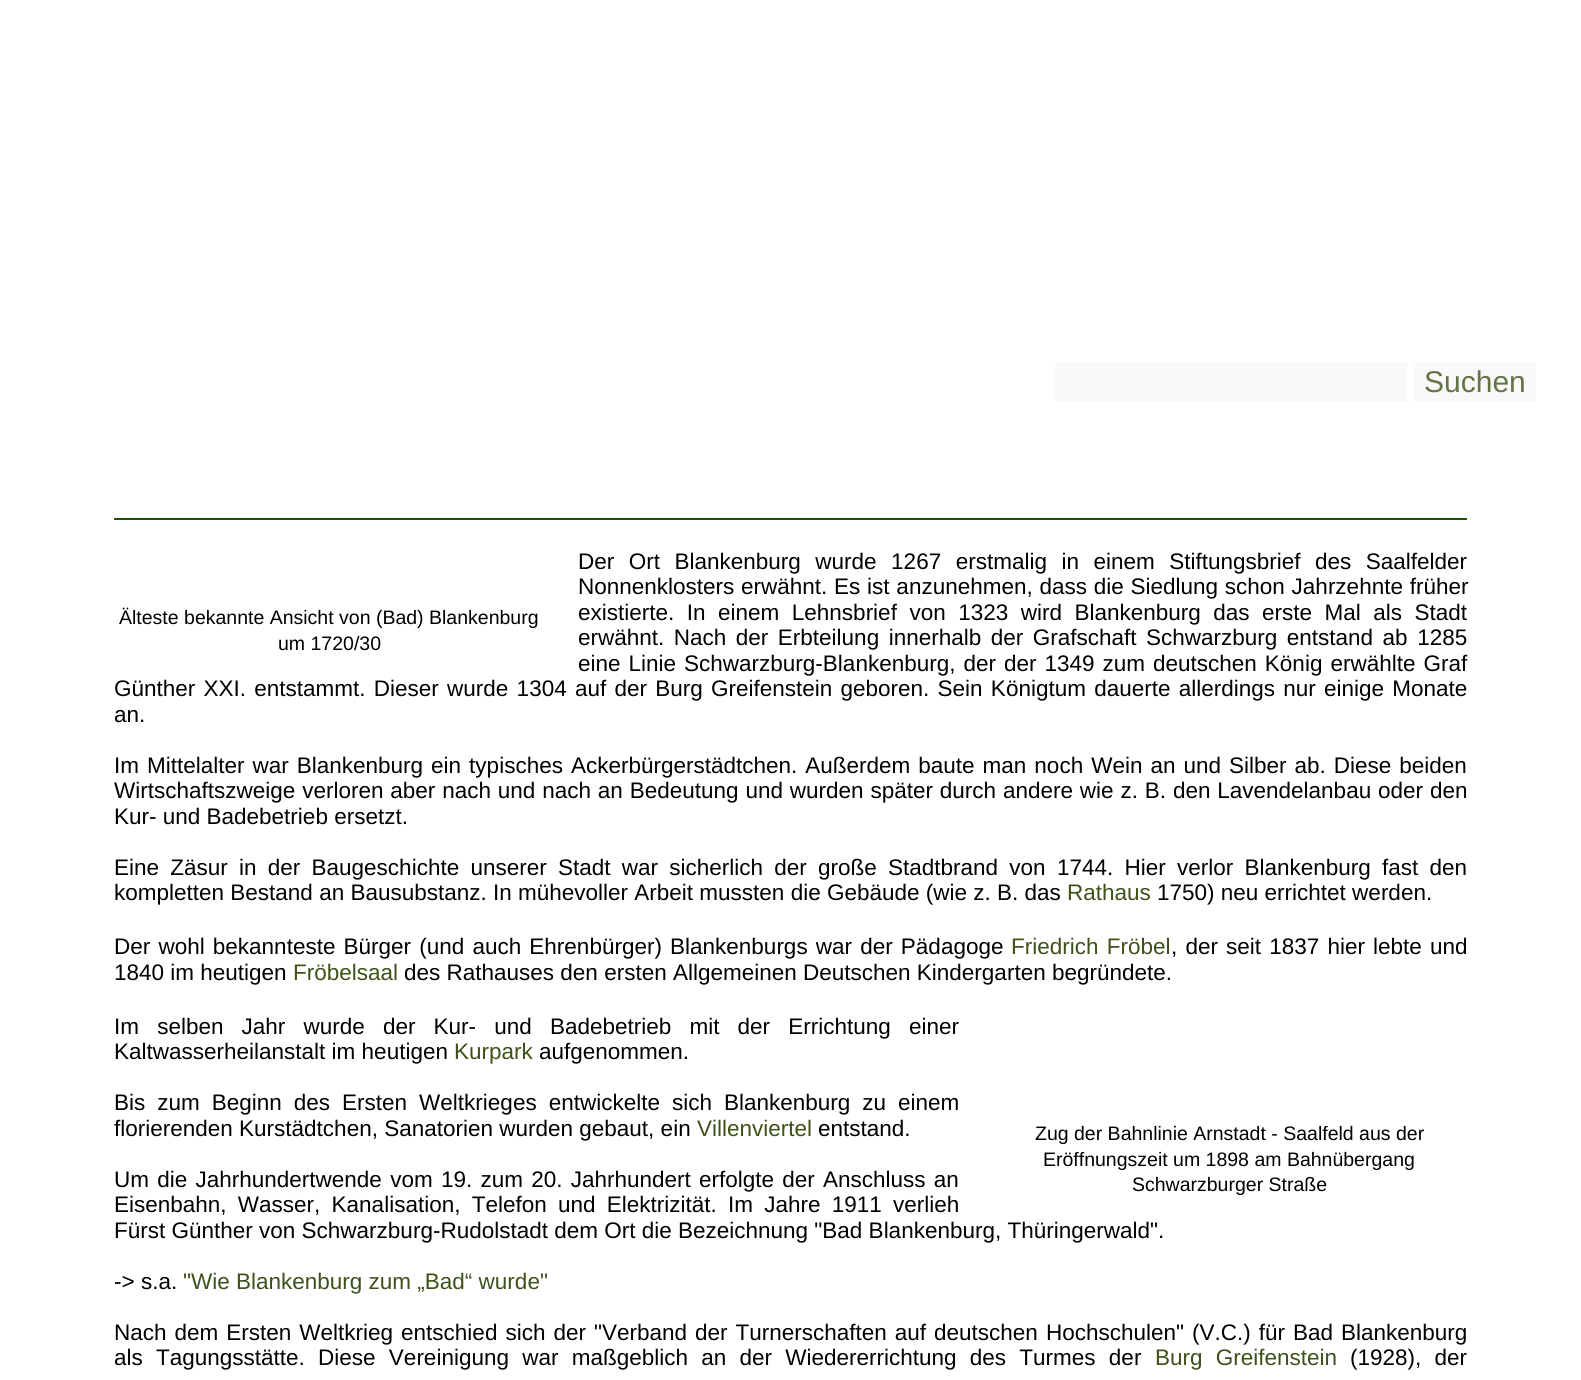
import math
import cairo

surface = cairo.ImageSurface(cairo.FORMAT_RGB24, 1581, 1380)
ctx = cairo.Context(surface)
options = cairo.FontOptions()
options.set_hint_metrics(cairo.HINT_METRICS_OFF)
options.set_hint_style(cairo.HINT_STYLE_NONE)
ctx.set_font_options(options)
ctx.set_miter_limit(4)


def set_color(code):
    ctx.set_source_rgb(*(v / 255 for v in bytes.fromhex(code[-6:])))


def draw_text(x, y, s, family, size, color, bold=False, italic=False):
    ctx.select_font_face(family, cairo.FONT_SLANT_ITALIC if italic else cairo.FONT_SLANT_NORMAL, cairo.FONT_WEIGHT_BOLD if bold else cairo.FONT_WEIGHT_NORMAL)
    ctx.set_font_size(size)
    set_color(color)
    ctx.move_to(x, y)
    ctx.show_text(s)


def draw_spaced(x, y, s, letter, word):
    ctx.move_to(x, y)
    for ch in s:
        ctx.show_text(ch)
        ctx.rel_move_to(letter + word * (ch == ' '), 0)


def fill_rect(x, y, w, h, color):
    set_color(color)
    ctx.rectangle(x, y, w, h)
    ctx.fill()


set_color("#ffffff")
ctx.paint()
fill_rect(1055, 362, 352, 40, "#f9f9f9")
fill_rect(1413, 362, 123, 40, "#f9f9f9")
draw_text(1424, 392, "Suchen", "Liberation Sans", 30, "#657347")
fill_rect(114, 518, 1353, 2, "#1d5109")
ctx.set_font_size(22.5)
set_color("#000000")
draw_spaced(578, 569, "Der Ort Blankenburg wurde 1267 erstmalig in einem Stiftungsbrief des Saalfelder", 0, 8.25)
draw_spaced(578, 594, "Nonnenklosters erwähnt. Es ist anzunehmen, dass die Siedlung schon Jahrzehnte früher", 0, 0.5)
draw_spaced(578, 620, "existierte. In einem Lehnsbrief von 1323 wird Blankenburg das erste Mal als Stadt", 0, 6.25)
draw_spaced(578, 645, "erwähnt. Nach der Erbteilung innerhalb der Grafschaft Schwarzburg entstand ab 1285", 0, 3.25)
draw_spaced(578, 671, "eine Linie Schwarzburg-Blankenburg, der der 1349 zum deutschen König erwählte Graf", 0, 1.75)
draw_spaced(114, 696, "Günther XXI. entstammt. Dieser wurde 1304 auf der Burg Greifenstein geboren. Sein Königtum dauerte allerdings nur einige Monate", 0, 2)
draw_text(114, 722, "an.", "Liberation Sans", 22.5, "#000000")
draw_spaced(114, 773, "Im Mittelalter war Blankenburg ein typisches Ackerbürgerstädtchen. Außerdem baute man noch Wein an und Silber ab. Diese beiden", 0, 1.75)
draw_spaced(114, 798, "Wirtschaftszweige verloren aber nach und nach an Bedeutung und wurden später durch andere wie z. B. den Lavendelanbau oder den", 0, 0.6)
draw_text(114, 824, "Kur- und Badebetrieb ersetzt.", "Liberation Sans", 22.5, "#000000")
draw_spaced(114, 875, "Eine Zäsur in der Baugeschichte unserer Stadt war sicherlich der große Stadtbrand von 1744. Hier verlor Blankenburg fast den", 0, 5)
draw_text(114, 900, "kompletten Bestand an Bausubstanz. In mühevoller Arbeit mussten die Gebäude (wie z. B. das", "Liberation Sans", 22.5, "#000000")
draw_text(1067, 900, "Rathaus", "Liberation Sans", 22.5, "#3f5019")
draw_text(1157, 900, "1750) neu errichtet werden.", "Liberation Sans", 22.5, "#000000")
draw_text(119, 624, "Älteste bekannte Ansicht von (Bad) Blankenburg", "Liberation Sans", 19.5, "#000000")
draw_text(278, 650, "um 1720/30", "Liberation Sans", 19.5, "#000000")
ctx.set_font_size(22.5)
draw_spaced(114, 954, "Der wohl bekannteste Bürger (und auch Ehrenbürger) Blankenburgs war der Pädagoge", 0, 1.9)
set_color("#3f5019")
draw_spaced(1011, 954, "Friedrich Fröbel", 0, 2)
set_color("#000000")
draw_spaced(1171, 954, ", der seit 1837 hier lebte und", 0, 1.9)
draw_text(114, 980, "1840 im heutigen", "Liberation Sans", 22.5, "#000000")
draw_text(293, 980, "Fröbelsaal", "Liberation Sans", 22.5, "#3f5019")
draw_text(404, 980, "des Rathauses den ersten Allgemeinen Deutschen Kindergarten begründete.", "Liberation Sans", 22.5, "#000000")
draw_spaced(114, 1034, "Im selben Jahr wurde der Kur- und Badebetrieb mit der Errichtung einer", 0, 11.9)
draw_text(114, 1059, "Kaltwasserheilanstalt im heutigen", "Liberation Sans", 22.5, "#000000")
draw_text(454, 1059, "Kurpark", "Liberation Sans", 22.5, "#3f5019")
draw_text(539, 1059, "aufgenommen.", "Liberation Sans", 22.5, "#000000")
draw_spaced(114, 1110, "Bis zum Beginn des Ersten Weltkrieges entwickelte sich Blankenburg zu einem", 0, 5.75)
draw_text(114, 1136, "florierenden Kurstädtchen, Sanatorien wurden gebaut, ein", "Liberation Sans", 22.5, "#000000")
draw_text(697, 1136, "Villenviertel", "Liberation Sans", 22.5, "#3f5019")
draw_text(818, 1136, "entstand.", "Liberation Sans", 22.5, "#000000")
draw_spaced(114, 1187, "Um die Jahrhundertwende vom 19. zum 20. Jahrhundert erfolgte der Anschluss an", 0, 2)
draw_spaced(114, 1212, "Eisenbahn, Wasser, Kanalisation, Telefon und Elektrizität. Im Jahre 1911 verlieh", 0, 5)
draw_text(114, 1238, "Fürst Günther von Schwarzburg-Rudolstadt dem Ort die Bezeichnung \"Bad Blankenburg, Thüringerwald\".", "Liberation Sans", 22.5, "#000000")
draw_text(114, 1289, "-> s.a.", "Liberation Sans", 22.5, "#000000")
draw_text(183, 1289, "\"Wie Blankenburg zum „Bad“ wurde\"", "Liberation Sans", 22.5, "#3f5019")
set_color("#000000")
draw_spaced(114, 1340, "Nach dem Ersten Weltkrieg entschied sich der \"Verband der Turnerschaften auf deutschen Hochschulen\" (V.C.) für Bad Blankenburg", 0, 1.75)
draw_spaced(114, 1365, "als Tagungsstätte. Diese Vereinigung war maßgeblich an der Wiedererrichtung des Turmes der", 0, 7)
set_color("#3f5019")
draw_spaced(1155, 1365, "Burg Greifenstein", 0, 7)
set_color("#000000")
draw_spaced(1350, 1365, "(1928), der", 0, 7)
draw_text(1035, 1140, "Zug der Bahnlinie Arnstadt - Saalfeld aus der", "Liberation Sans", 19.5, "#000000")
draw_text(1043, 1166, "Eröffnungszeit um 1898 am Bahnübergang", "Liberation Sans", 19.5, "#000000")
draw_text(1132, 1191, "Schwarzburger Straße", "Liberation Sans", 19.5, "#000000")
surface.write_to_png("output.png")
